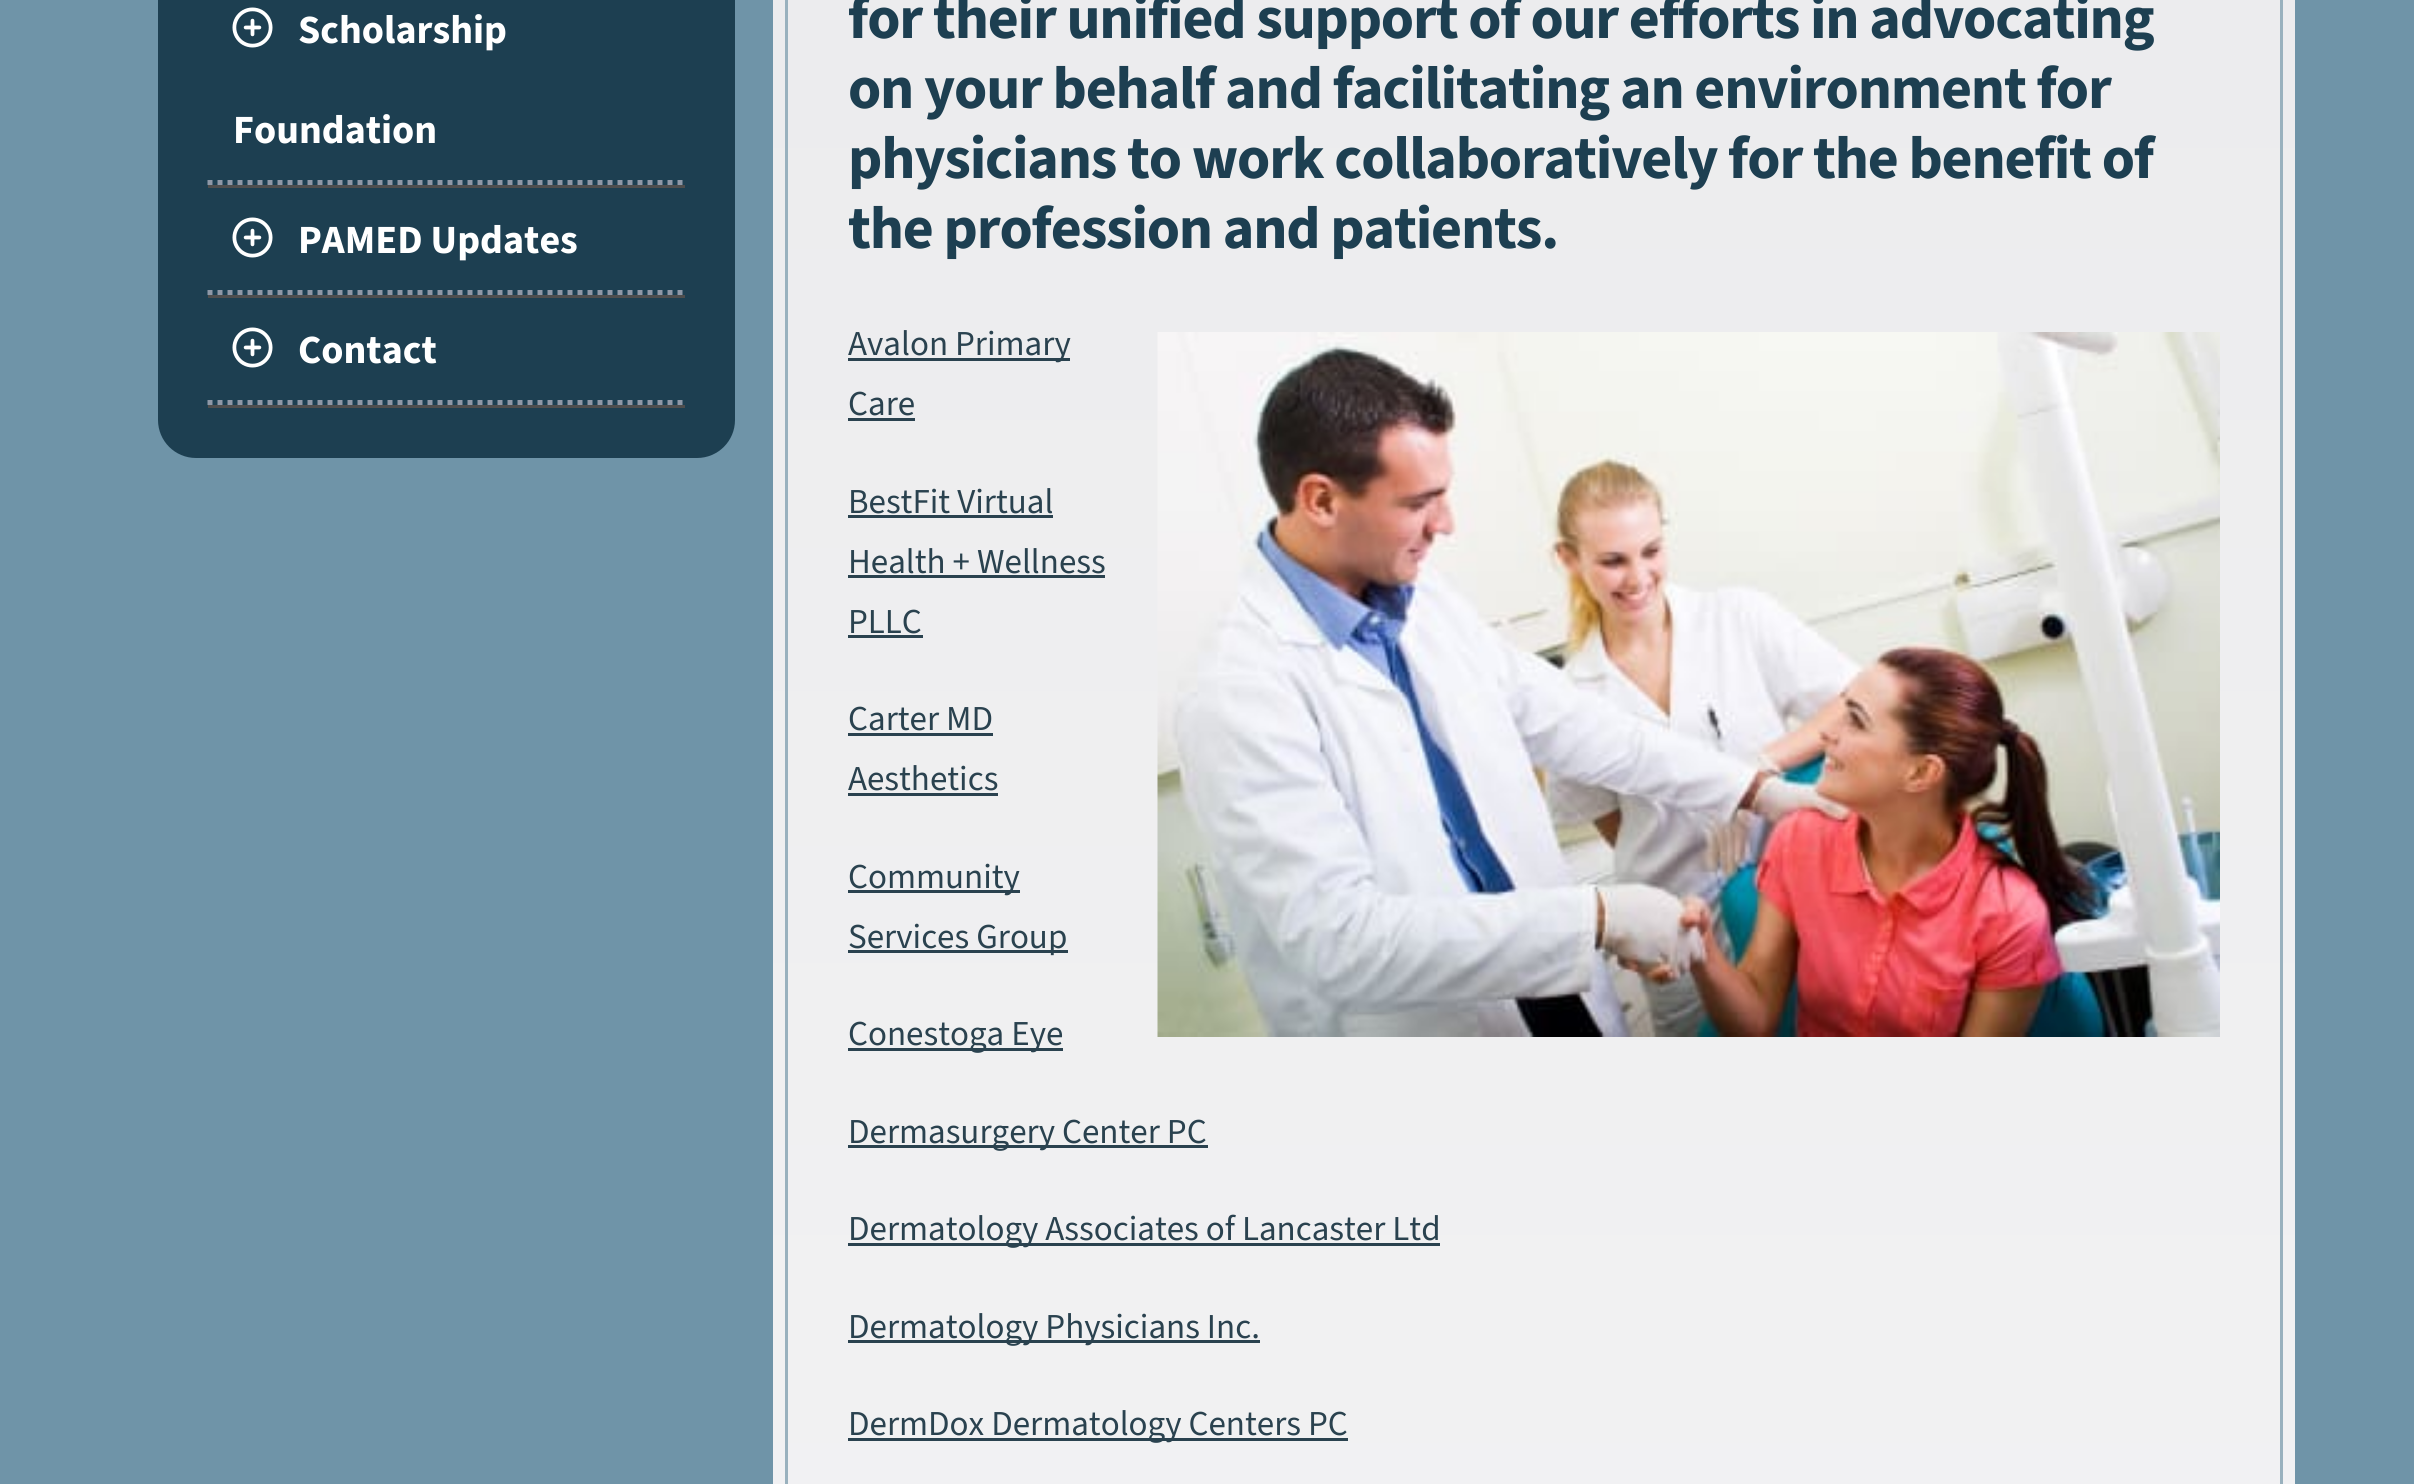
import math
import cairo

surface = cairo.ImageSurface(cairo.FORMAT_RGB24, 2414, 1484)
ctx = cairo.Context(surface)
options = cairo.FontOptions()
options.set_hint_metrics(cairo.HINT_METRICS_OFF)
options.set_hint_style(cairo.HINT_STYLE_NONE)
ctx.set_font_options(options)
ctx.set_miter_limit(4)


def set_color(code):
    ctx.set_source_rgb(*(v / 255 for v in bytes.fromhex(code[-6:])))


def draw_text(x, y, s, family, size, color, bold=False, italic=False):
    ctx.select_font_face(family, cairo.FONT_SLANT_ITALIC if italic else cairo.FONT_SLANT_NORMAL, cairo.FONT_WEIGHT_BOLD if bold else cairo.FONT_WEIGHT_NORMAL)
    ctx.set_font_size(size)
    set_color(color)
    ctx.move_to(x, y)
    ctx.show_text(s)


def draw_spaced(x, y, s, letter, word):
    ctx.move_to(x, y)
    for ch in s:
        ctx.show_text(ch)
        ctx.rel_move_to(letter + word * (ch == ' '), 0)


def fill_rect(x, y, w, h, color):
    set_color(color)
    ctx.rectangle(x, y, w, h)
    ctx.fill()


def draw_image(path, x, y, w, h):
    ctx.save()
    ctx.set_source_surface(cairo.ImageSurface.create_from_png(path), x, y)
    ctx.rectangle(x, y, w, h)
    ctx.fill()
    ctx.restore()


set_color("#6f94a8")
ctx.paint()
set_color("#1d3f51")
ctx.new_path()
ctx.move_to(158, -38)
ctx.line_to(735, -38)
ctx.line_to(735, 420)
ctx.curve_to(735, 441, 718, 458, 697, 458)
ctx.line_to(196, 458)
ctx.curve_to(175, 458, 158, 441, 158, 420)
ctx.close_path()
ctx.fill()
fill_rect(208, 185, 477, 3, "#4e4e4e")
ctx.new_path()
ctx.move_to(207.5, 182.5)
ctx.line_to(685, 182.5)
set_color("#8e98a7")
ctx.set_line_width(5)
ctx.set_dash([5, 5])
ctx.stroke()
draw_image("assets/img1.png", 232, 7, 41, 41)
draw_text(298, 43, "Scholarship", "Source Sans 3", 40, "#ffffff", bold=True)
draw_text(233, 143, "Foundation", "Source Sans 3", 40, "#ffffff", bold=True)
fill_rect(208, 295, 477, 3, "#4e4e4e")
ctx.new_path()
ctx.move_to(207.5, 292.5)
ctx.line_to(685, 292.5)
set_color("#8e98a7")
ctx.stroke()
draw_image("assets/img1.png", 232, 217, 41, 41)
draw_text(298, 253, "PAMED Updates", "Source Sans 3", 40, "#ffffff", bold=True)
fill_rect(208, 405, 477, 3, "#4e4e4e")
ctx.new_path()
ctx.move_to(207.5, 402.5)
ctx.line_to(685, 402.5)
set_color("#8e98a7")
ctx.stroke()
draw_image("assets/img1.png", 232, 327, 41, 41)
draw_text(298, 363, "Contact", "Source Sans 3", 40, "#ffffff", bold=True)
gradient = cairo.LinearGradient(1534, -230, 1534, 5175)
gradient.add_color_stop_rgba(0, 0.922, 0.922, 0.929, 1)
gradient.add_color_stop_rgba(1, 1, 1, 1, 1)
ctx.set_source(gradient)
ctx.rectangle(773, 0, 1522, 1484)
ctx.fill()
fill_rect(848, 358, 222, 3, "#2a424f")
fill_rect(848, 418, 67, 3, "#2a424f")
fill_rect(848, 515, 205, 3, "#2a424f")
fill_rect(848, 575, 257, 3, "#2a424f")
fill_rect(848, 635, 75, 3, "#2a424f")
fill_rect(848, 733, 145, 3, "#2a424f")
fill_rect(848, 793, 150, 3, "#2a424f")
fill_rect(848, 890, 172, 3, "#2a424f")
fill_rect(848, 950, 220, 3, "#2a424f")
fill_rect(848, 1048, 215, 3, "#2a424f")
fill_rect(848, 1145, 360, 3, "#2a424f")
fill_rect(848, 1243, 592, 3, "#2a424f")
fill_rect(848, 1340, 412, 3, "#2a424f")
fill_rect(848, 1438, 500, 3, "#2a424f")
ctx.rectangle(786.5, -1.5, 1495, 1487)
set_color("#99b1be")
ctx.set_line_width(3)
ctx.set_dash([])
ctx.stroke()
ctx.set_font_size(60)
set_color("#1d3f51")
draw_spaced(848, 38, "for their unified support of our efforts in advocating", -1.2, 0)
draw_spaced(848, 108, "on your behalf and facilitating an environment for", -1.2, 0)
draw_spaced(848, 178, "physicians to work collaboratively for the benefit of", -1.2, 0)
draw_spaced(848, 248, "the profession and patients.", -1.2, 0)
draw_text(848, 355, "Avalon Primary", "Source Sans 3", 35, "#2a424f")
draw_text(848, 415, "Care", "Source Sans 3", 35, "#2a424f")
draw_image("assets/img2.png", 1157, 332, 1063, 705)
draw_text(848, 513, "BestFit Virtual", "Source Sans 3", 35, "#2a424f")
draw_text(848, 573, "Health + Wellness", "Source Sans 3", 35, "#2a424f")
draw_text(848, 633, "PLLC", "Source Sans 3", 35, "#2a424f")
draw_text(848, 730, "Carter MD", "Source Sans 3", 35, "#2a424f")
draw_text(848, 790, "Aesthetics", "Source Sans 3", 35, "#2a424f")
draw_text(848, 888, "Community", "Source Sans 3", 35, "#2a424f")
draw_text(848, 948, "Services Group", "Source Sans 3", 35, "#2a424f")
draw_text(848, 1045, "Conestoga Eye", "Source Sans 3", 35, "#2a424f")
draw_text(848, 1143, "Dermasurgery Center PC", "Source Sans 3", 35, "#2a424f")
draw_text(848, 1240, "Dermatology Associates of Lancaster Ltd", "Source Sans 3", 35, "#2a424f")
draw_text(848, 1338, "Dermatology Physicians Inc.", "Source Sans 3", 35, "#2a424f")
draw_text(848, 1435, "DermDox Dermatology Centers PC", "Source Sans 3", 35, "#2a424f")
surface.write_to_png("output.png")
